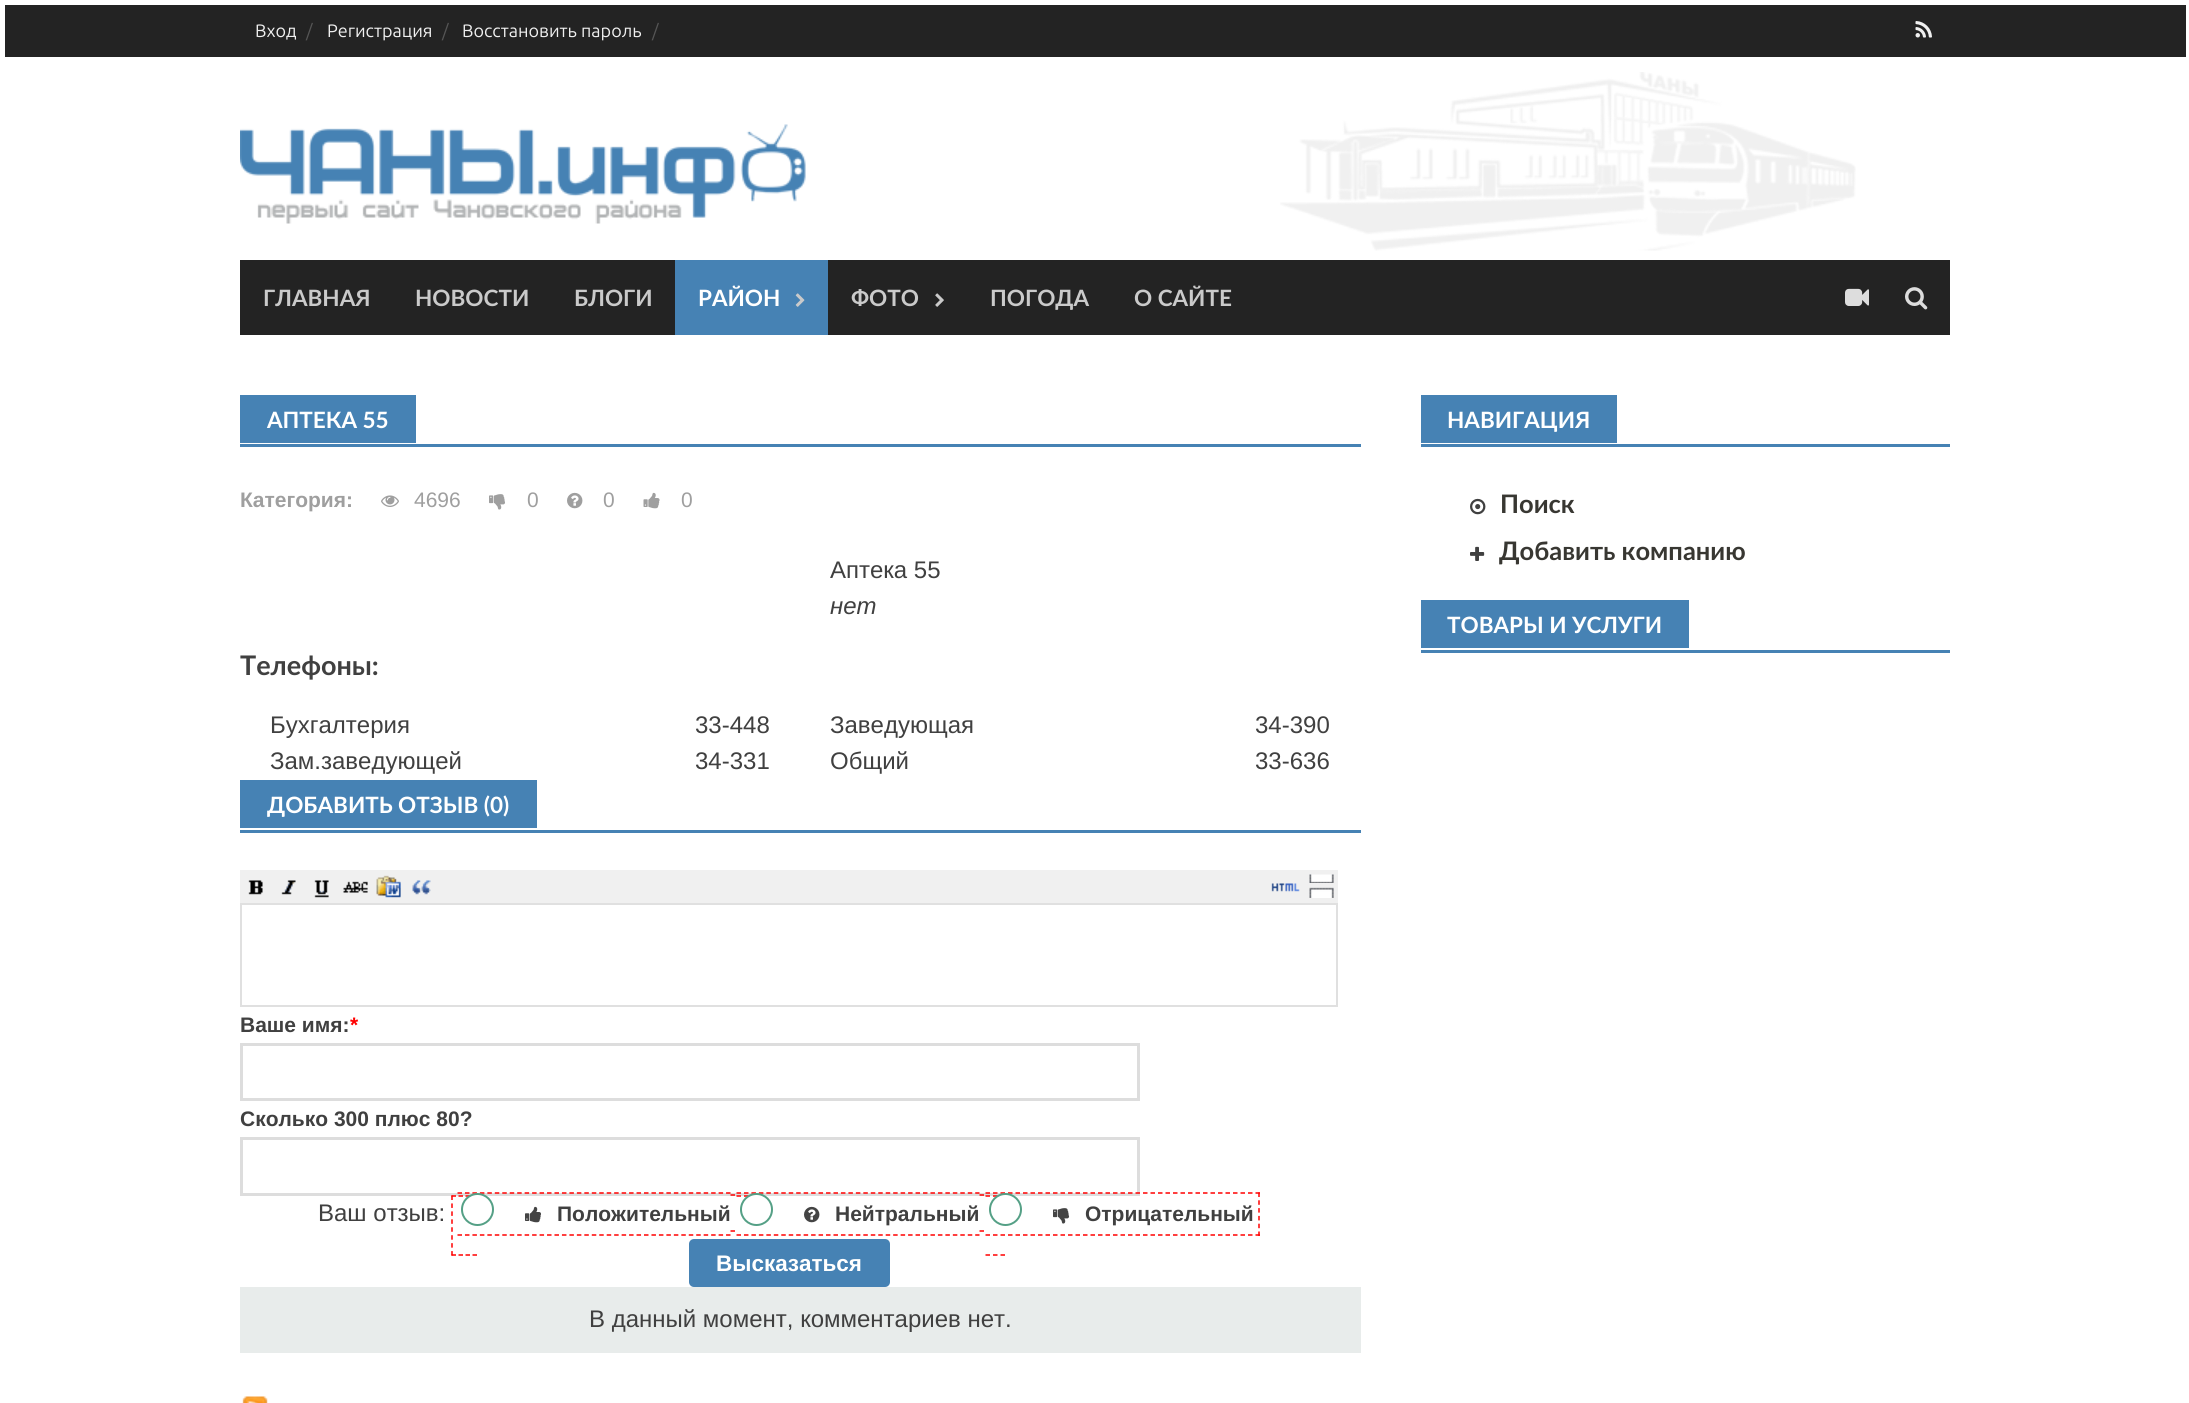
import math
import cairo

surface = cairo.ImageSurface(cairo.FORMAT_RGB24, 2189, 1403)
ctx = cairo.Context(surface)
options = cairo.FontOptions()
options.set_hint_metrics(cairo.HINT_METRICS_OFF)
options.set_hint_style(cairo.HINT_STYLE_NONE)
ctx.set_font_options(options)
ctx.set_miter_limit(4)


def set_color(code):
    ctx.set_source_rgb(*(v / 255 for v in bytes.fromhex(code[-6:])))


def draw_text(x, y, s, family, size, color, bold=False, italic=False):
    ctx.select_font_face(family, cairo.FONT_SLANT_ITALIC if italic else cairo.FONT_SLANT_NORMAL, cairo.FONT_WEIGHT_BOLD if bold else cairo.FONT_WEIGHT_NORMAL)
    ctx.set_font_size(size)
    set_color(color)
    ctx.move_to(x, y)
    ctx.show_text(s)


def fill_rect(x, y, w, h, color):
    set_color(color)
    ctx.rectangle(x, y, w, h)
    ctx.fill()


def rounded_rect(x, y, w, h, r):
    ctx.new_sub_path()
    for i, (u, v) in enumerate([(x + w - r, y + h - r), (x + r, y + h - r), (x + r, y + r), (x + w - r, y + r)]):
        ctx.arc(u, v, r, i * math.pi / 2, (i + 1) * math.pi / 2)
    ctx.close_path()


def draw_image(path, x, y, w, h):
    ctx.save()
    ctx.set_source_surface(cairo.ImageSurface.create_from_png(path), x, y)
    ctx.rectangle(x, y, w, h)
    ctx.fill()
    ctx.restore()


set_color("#ffffff")
ctx.paint()
fill_rect(5, 5, 2181, 52, "#232323")
draw_text(255, 37, "Вход", "Ubuntu", 18, "#f0f0f0")
draw_text(306, 37, "/", "Ubuntu", 18, "#555555")
draw_text(327, 37, "Регистрация", "Ubuntu", 18, "#f0f0f0")
draw_text(442, 37, "/", "Ubuntu", 18, "#555555")
draw_text(462, 37, "Восстановить пароль", "Ubuntu", 18, "#f0f0f0")
draw_text(652, 37, "/", "Ubuntu", 18, "#555555")
draw_image("assets/img1.png", 1915, 21, 17, 17)
draw_image("assets/img2.png", 1280, 72, 576, 179)
draw_image("assets/img3.png", 240, 124, 566, 100)
fill_rect(240, 260, 1710, 75, "#232323")
draw_text(263, 306, "ГЛАВНАЯ", "Lato", 22.5, "#cacaca", bold=True)
draw_text(415, 306, "НОВОСТИ", "Lato", 22.5, "#cacaca", bold=True)
draw_text(574, 306, "БЛОГИ", "Lato", 22.5, "#cacaca", bold=True)
fill_rect(675, 260, 153, 75, "#4682b4")
draw_text(698, 306, "РАЙОН", "Lato", 22.5, "#ffffff", bold=True)
draw_image("assets/img4.png", 795, 293, 10, 14)
draw_text(851, 306, "ФОТО", "Lato", 22.5, "#cacaca", bold=True)
draw_image("assets/img5.png", 935, 293, 9, 14)
draw_text(990, 306, "ПОГОДА", "Lato", 22.5, "#cacaca", bold=True)
draw_text(1134, 306, "О САЙТЕ", "Lato", 22.5, "#cacaca", bold=True)
draw_image("assets/img6.png", 1845, 288, 24, 18)
draw_image("assets/img7.png", 1905, 287, 23, 23)
fill_rect(240, 444, 1121, 3, "#4682b4")
fill_rect(240, 395, 176, 48, "#4682b4")
draw_text(267, 428, "АПТЕКА 55", "Lato", 22.5, "#ffffff", bold=True)
draw_text(240, 507, "Категория:", "Liberation Sans", 21, "#9f9f9f", bold=True)
draw_image("assets/img8.png", 381, 495, 18, 12)
draw_text(414, 507, "4696", "Liberation Sans", 21, "#9f9f9f")
draw_image("assets/img9.png", 489, 494, 16, 16)
draw_text(527, 507, "0", "Liberation Sans", 21, "#9f9f9f")
draw_image("assets/img10.png", 567, 492, 16, 17)
draw_text(603, 507, "0", "Liberation Sans", 21, "#9f9f9f")
draw_image("assets/img11.png", 643, 492, 17, 17)
draw_text(681, 507, "0", "Liberation Sans", 21, "#9f9f9f")
draw_text(830, 578, "Аптека 55", "Liberation Sans", 24, "#404040")
draw_text(830, 614, "нет", "Liberation Sans", 24, "#404040", italic=True)
draw_text(240, 675, "Телефоны:", "Lato", 27, "#404040", bold=True)
draw_text(270, 733, "Бухгалтерия", "Liberation Sans", 24, "#404040")
draw_text(695, 733, "33-448", "Liberation Sans", 24, "#404040")
draw_text(830, 733, "Заведующая", "Liberation Sans", 24, "#404040")
draw_text(1255, 733, "34-390", "Liberation Sans", 24, "#404040")
draw_text(270, 769, "Зам.заведующей", "Liberation Sans", 24, "#404040")
draw_text(695, 769, "34-331", "Liberation Sans", 24, "#404040")
draw_text(830, 769, "Общий", "Liberation Sans", 24, "#404040")
draw_text(1255, 769, "33-636", "Liberation Sans", 24, "#404040")
fill_rect(240, 830, 1121, 3, "#4682b4")
fill_rect(240, 780, 297, 48, "#4682b4")
draw_text(267, 813, "ДОБАВИТЬ ОТЗЫВ (0)", "Lato", 22.5, "#ffffff", bold=True)
fill_rect(240, 870, 1098, 33, "#f0f0f0")
draw_image("assets/img12.png", 248, 880, 15, 15)
draw_image("assets/img13.png", 281, 880, 15, 15)
draw_image("assets/img14.png", 314, 880, 15, 18)
draw_image("assets/img15.png", 343, 881, 25, 12)
draw_image("assets/img16.png", 376, 875, 25, 23)
draw_image("assets/img17.png", 412, 880, 19, 15)
draw_image("assets/img18.png", 1271, 883, 29, 9)
draw_image("assets/img19.png", 1309, 874, 25, 9)
draw_image("assets/img20.png", 1309, 887, 25, 11)
ctx.rectangle(241, 904, 1096, 102)
set_color("#e0e0e0")
ctx.stroke()
draw_text(240, 1032, "Ваше имя:", "Liberation Sans", 21, "#404040", bold=True)
draw_text(350, 1032, "*", "Liberation Sans", 21, "#ff0000", bold=True)
ctx.rectangle(241.5, 1044.5, 897, 55)
set_color("#dddddd")
ctx.set_line_width(3)
ctx.stroke()
draw_text(240, 1126, "Сколько 300 плюс 80?", "Liberation Sans", 21, "#404040", bold=True)
ctx.rectangle(241.5, 1138.5, 897, 56)
set_color("#dddddd")
ctx.stroke()
draw_text(318, 1221, "Ваш отзыв:", "Liberation Sans", 24, "#404040")
ctx.new_path()
ctx.move_to(451.5, 1196)
ctx.line_to(477, 1196)
ctx.move_to(451.5, 1255)
ctx.line_to(477, 1255)
set_color("#ff0000")
ctx.set_line_width(1.5)
ctx.set_dash([4.5, 2.5])
ctx.stroke()
ctx.new_path()
ctx.move_to(452, 1195.5)
ctx.line_to(452, 1255.5)
ctx.set_dash([4.5, 3.44])
ctx.stroke()
ctx.new_path()
ctx.move_to(457.5, 1193)
ctx.line_to(730.5, 1193)
ctx.set_dash([4.5, 2.96])
ctx.stroke()
ctx.new_path()
ctx.move_to(457.5, 1235)
ctx.line_to(730.5, 1235)
ctx.stroke()
ctx.new_path()
ctx.move_to(730.5, 1195)
ctx.line_to(735, 1195)
ctx.move_to(730.5, 1231)
ctx.line_to(735, 1231)
ctx.move_to(736.5, 1196)
ctx.line_to(741, 1196)
ctx.move_to(744, 1196)
ctx.line_to(748.5, 1196)
ctx.move_to(751.5, 1196)
ctx.line_to(756, 1196)
ctx.set_dash([])
ctx.stroke()
ctx.new_path()
ctx.move_to(736.5, 1193)
ctx.line_to(979.5, 1193)
ctx.set_dash([4.5, 2.96])
ctx.stroke()
ctx.new_path()
ctx.move_to(736.5, 1235)
ctx.line_to(979.5, 1235)
ctx.stroke()
ctx.new_path()
ctx.move_to(979.5, 1195)
ctx.line_to(984, 1195)
ctx.move_to(979.5, 1231)
ctx.line_to(984, 1231)
ctx.move_to(985.5, 1196)
ctx.line_to(990, 1196)
ctx.move_to(993, 1196)
ctx.line_to(997.5, 1196)
ctx.move_to(1000.5, 1196)
ctx.line_to(1005, 1196)
ctx.move_to(985.5, 1255)
ctx.line_to(990, 1255)
ctx.move_to(993, 1255)
ctx.line_to(997.5, 1255)
ctx.move_to(1000.5, 1255)
ctx.line_to(1005, 1255)
ctx.set_dash([])
ctx.stroke()
ctx.new_path()
ctx.move_to(985.5, 1193)
ctx.line_to(1260, 1193)
ctx.set_dash([4.5, 3])
ctx.stroke()
ctx.new_path()
ctx.move_to(1259, 1192.5)
ctx.line_to(1259, 1236)
ctx.set_dash([4.5, 3.3])
ctx.stroke()
ctx.new_path()
ctx.move_to(985.5, 1235)
ctx.line_to(1260, 1235)
ctx.set_dash([4.5, 3])
ctx.stroke()
set_color("#ffffff")
ctx.arc(477.5, 1209.5, 15.5, 0, 2 * math.pi)
ctx.fill_preserve()
set_color("#55a086")
ctx.set_line_width(2)
ctx.set_dash([])
ctx.stroke()
draw_image("assets/img21.png", 525, 1206, 16, 17)
draw_text(557, 1221, "Положительный", "Liberation Sans", 21, "#404040", bold=True)
set_color("#ffffff")
ctx.new_path()
ctx.arc(756.5, 1209.5, 15.5, 0, 2 * math.pi)
ctx.fill_preserve()
set_color("#55a086")
ctx.stroke()
draw_image("assets/img22.png", 804, 1206, 16, 17)
draw_text(835, 1221, "Нейтральный", "Liberation Sans", 21, "#404040", bold=True)
set_color("#ffffff")
ctx.new_path()
ctx.arc(1005.5, 1209.5, 15.5, 0, 2 * math.pi)
ctx.fill_preserve()
set_color("#55a086")
ctx.stroke()
draw_image("assets/img23.png", 1053, 1208, 17, 16)
draw_text(1085, 1221, "Отрицательный", "Liberation Sans", 21, "#404040", bold=True)
set_color("#4682b4")
rounded_rect(689, 1239, 201, 48, 5)
ctx.fill()
draw_text(716, 1271, "Высказаться", "Liberation Sans", 22.5, "#ffffff", bold=True)
fill_rect(240, 1287, 1121, 66, "#e8eceb")
draw_text(589, 1327, "В данный момент, комментариев нет.", "Liberation Sans", 24, "#404040")
draw_image("assets/img24.png", 242, 1396, 26, 7)
fill_rect(1421, 444, 529, 3, "#4682b4")
fill_rect(1421, 395, 196, 48, "#4682b4")
draw_text(1447, 428, "НАВИГАЦИЯ", "Lato", 22.5, "#ffffff", bold=True)
draw_image("assets/img25.png", 1470, 498, 16, 17)
draw_text(1500, 513, "Поиск", "Lato", 25.5, "#383732", bold=True)
draw_image("assets/img26.png", 1470, 546, 15, 15)
draw_text(1499, 560, "Добавить компанию", "Lato", 25.5, "#383732", bold=True)
fill_rect(1421, 650, 529, 3, "#4682b4")
fill_rect(1421, 600, 268, 48, "#4682b4")
draw_text(1447, 633, "ТОВАРЫ И УСЛУГИ", "Lato", 22.5, "#ffffff", bold=True)
surface.write_to_png("output.png")
